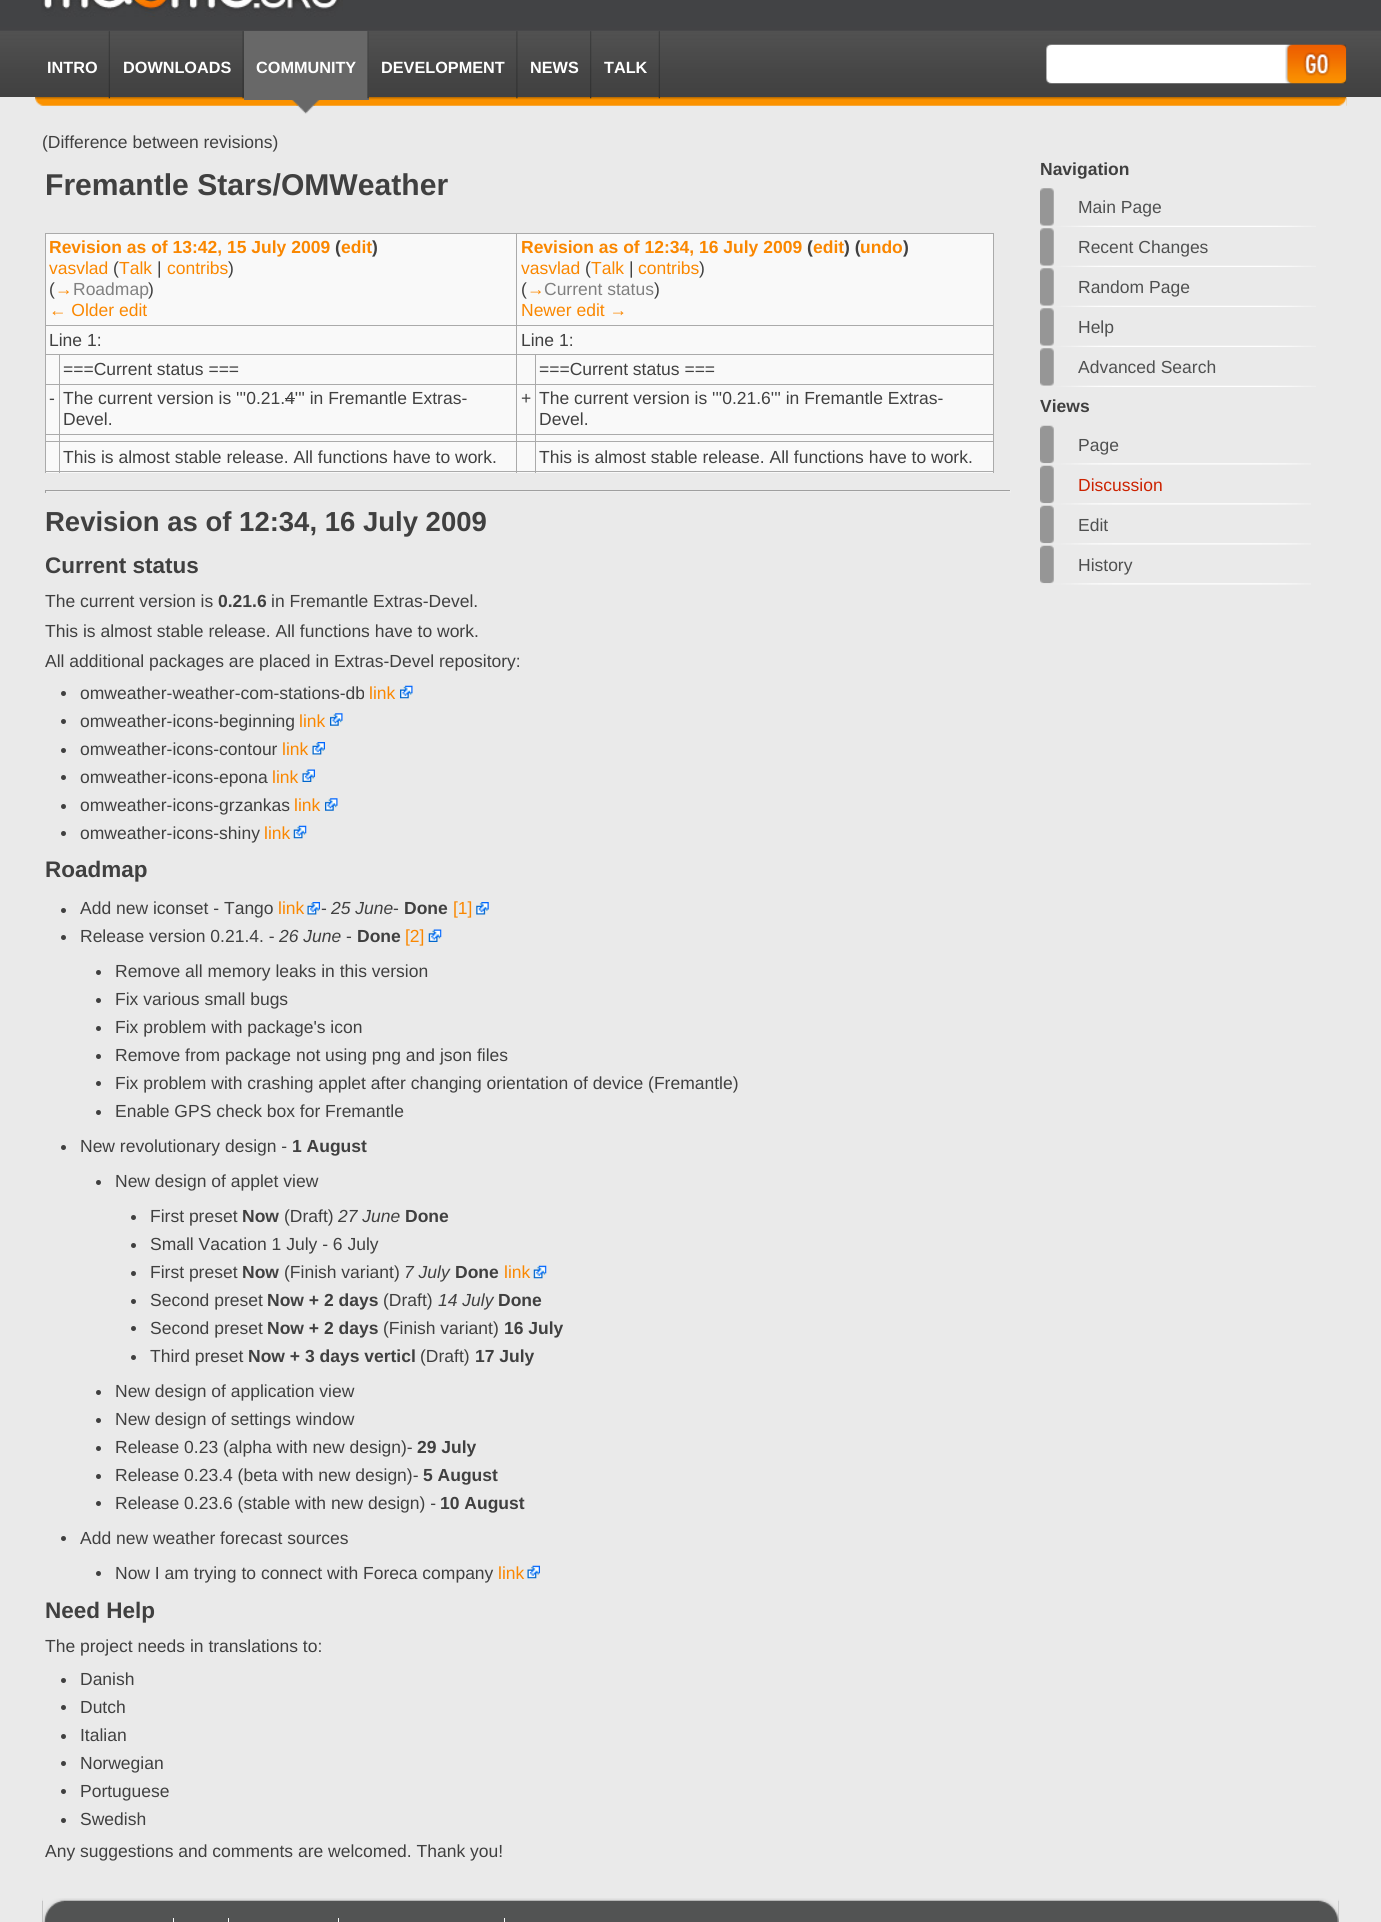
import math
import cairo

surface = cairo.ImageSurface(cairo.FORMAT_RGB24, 1381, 1922)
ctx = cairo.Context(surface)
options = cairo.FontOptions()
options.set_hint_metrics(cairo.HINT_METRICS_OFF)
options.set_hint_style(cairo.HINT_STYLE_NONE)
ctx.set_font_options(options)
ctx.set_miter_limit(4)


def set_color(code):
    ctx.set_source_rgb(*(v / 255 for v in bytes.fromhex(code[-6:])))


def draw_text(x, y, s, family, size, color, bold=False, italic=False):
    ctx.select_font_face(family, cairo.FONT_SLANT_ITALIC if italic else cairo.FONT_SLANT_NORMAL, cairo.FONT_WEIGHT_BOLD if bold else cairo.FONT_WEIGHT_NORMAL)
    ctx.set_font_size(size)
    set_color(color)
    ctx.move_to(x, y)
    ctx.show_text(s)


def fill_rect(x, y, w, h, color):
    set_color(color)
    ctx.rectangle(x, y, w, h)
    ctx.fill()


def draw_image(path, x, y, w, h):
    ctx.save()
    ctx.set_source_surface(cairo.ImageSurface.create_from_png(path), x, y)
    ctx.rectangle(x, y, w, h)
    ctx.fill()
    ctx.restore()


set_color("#eaeaea")
ctx.paint()
draw_image("assets/img1.png", 0, 0, 1381, 97)
draw_image("assets/img2.png", 41, 0, 302, 17)
draw_image("assets/img3.png", 42, 97, 1305, 9)
draw_image("assets/img4.png", 35, 97, 8, 9)
draw_image("assets/img5.png", 1338, 98, 9, 8)
draw_image("assets/img6.png", 108, 31, 2, 68)
draw_text(47, 73, "INTRO", "Liberation Sans", 16.25, "#ffffff", bold=True)
draw_image("assets/img7.png", 242, 31, 2, 68)
draw_text(123, 73, "DOWNLOADS", "Liberation Sans", 16.25, "#ffffff", bold=True)
draw_image("assets/img8.png", 291, 100, 30, 14)
fill_rect(244, 31, 125, 69, "#686868")
draw_image("assets/img9.png", 367, 31, 2, 68)
draw_text(256, 73, "COMMUNITY", "Liberation Sans", 16.25, "#ffffff", bold=True)
draw_image("assets/img10.png", 516, 31, 2, 68)
draw_text(381, 73, "DEVELOPMENT", "Liberation Sans", 16.25, "#ffffff", bold=True)
draw_image("assets/img11.png", 590, 31, 2, 68)
draw_text(530, 73, "NEWS", "Liberation Sans", 16.25, "#ffffff", bold=True)
draw_image("assets/img6.png", 658, 31, 2, 68)
draw_text(604, 73, "TALK", "Liberation Sans", 16.25, "#ffffff", bold=True)
draw_image("assets/img12.png", 1046, 44, 239, 40)
draw_image("assets/img13.png", 1285, 44, 62, 40)
draw_text(42, 148, "(Difference between revisions)", "Liberation Sans", 17.5, "#404040")
draw_text(45, 195, "Fremantle Stars/OMWeather", "Liberation Sans", 30.1, "#404040", bold=True)
fill_rect(46, 234, 947, 239, "#f9f9f9")
fill_rect(45, 233, 949, 1, "#aaaaaa")
fill_rect(993, 233, 1, 240, "#aaaaaa")
fill_rect(45, 471, 949, 1, "#aaaaaa")
fill_rect(45, 233, 1, 240, "#aaaaaa")
draw_text(49, 253, "Revision as of 13:42, 15 July 2009", "Liberation Sans", 17.5, "#fa8700", bold=True)
draw_text(335, 253, "(", "Liberation Sans", 17.5, "#404040", bold=True)
draw_text(341, 253, "edit", "Liberation Sans", 17.5, "#fa8700", bold=True)
draw_text(372, 253, ")", "Liberation Sans", 17.5, "#404040", bold=True)
draw_text(49, 274, "vasvlad", "Liberation Sans", 17.5, "#fa8700")
draw_text(113, 274, "(", "Liberation Sans", 17.5, "#404040")
draw_text(119, 274, "Talk", "Liberation Sans", 17.5, "#fa8700")
draw_text(157, 274, "|", "Liberation Sans", 17.5, "#404040")
draw_text(167, 274, "contribs", "Liberation Sans", 17.5, "#fa8700")
draw_text(228, 274, ")", "Liberation Sans", 17.5, "#404040")
draw_text(49, 295, "(", "Liberation Sans", 17.5, "#404040")
draw_text(55, 295, "→", "Liberation Sans", 17.5, "#fa8700")
draw_text(73, 295, "Roadmap", "Liberation Sans", 17.5, "#808080")
draw_text(148, 295, ")", "Liberation Sans", 17.5, "#404040")
draw_text(49, 316, "← Older edit", "Liberation Sans", 17.5, "#fa8700")
fill_rect(516, 325, 478, 1, "#aaaaaa")
fill_rect(535, 354, 459, 1, "#aaaaaa")
fill_rect(535, 384, 459, 1, "#aaaaaa")
fill_rect(535, 434, 459, 1, "#aaaaaa")
fill_rect(535, 441, 459, 1, "#aaaaaa")
fill_rect(535, 441, 1, 32, "#aaaaaa")
fill_rect(516, 441, 20, 1, "#aaaaaa")
fill_rect(535, 434, 1, 9, "#aaaaaa")
fill_rect(516, 434, 20, 1, "#aaaaaa")
fill_rect(535, 384, 1, 51, "#aaaaaa")
fill_rect(516, 384, 20, 1, "#aaaaaa")
fill_rect(535, 354, 1, 31, "#aaaaaa")
fill_rect(516, 354, 20, 1, "#aaaaaa")
fill_rect(516, 441, 1, 32, "#aaaaaa")
fill_rect(59, 441, 459, 1, "#aaaaaa")
fill_rect(516, 434, 1, 9, "#aaaaaa")
fill_rect(59, 434, 459, 1, "#aaaaaa")
fill_rect(516, 384, 1, 51, "#aaaaaa")
fill_rect(59, 384, 459, 1, "#aaaaaa")
fill_rect(516, 354, 1, 31, "#aaaaaa")
fill_rect(59, 354, 459, 1, "#aaaaaa")
fill_rect(516, 325, 1, 30, "#aaaaaa")
fill_rect(45, 325, 473, 1, "#aaaaaa")
fill_rect(516, 233, 1, 93, "#aaaaaa")
draw_text(521, 253, "Revision as of 12:34, 16 July 2009", "Liberation Sans", 17.5, "#fa8700", bold=True)
draw_text(807, 253, "(", "Liberation Sans", 17.5, "#404040", bold=True)
draw_text(813, 253, "edit", "Liberation Sans", 17.5, "#fa8700", bold=True)
draw_text(844, 253, ") (", "Liberation Sans", 17.5, "#404040", bold=True)
draw_text(860, 253, "undo", "Liberation Sans", 17.5, "#fa8700", bold=True)
draw_text(903, 253, ")", "Liberation Sans", 17.5, "#404040", bold=True)
draw_text(521, 274, "vasvlad", "Liberation Sans", 17.5, "#fa8700")
draw_text(585, 274, "(", "Liberation Sans", 17.5, "#404040")
draw_text(591, 274, "Talk", "Liberation Sans", 17.5, "#fa8700")
draw_text(629, 274, "|", "Liberation Sans", 17.5, "#404040")
draw_text(638, 274, "contribs", "Liberation Sans", 17.5, "#fa8700")
draw_text(699, 274, ")", "Liberation Sans", 17.5, "#404040")
draw_text(521, 295, "(", "Liberation Sans", 17.5, "#404040")
draw_text(527, 295, "→", "Liberation Sans", 17.5, "#fa8700")
draw_text(544, 295, "Current status", "Liberation Sans", 17.5, "#808080")
draw_text(654, 295, ")", "Liberation Sans", 17.5, "#404040")
draw_text(521, 316, "Newer edit →", "Liberation Sans", 17.5, "#fa8700")
draw_text(49, 346, "Line 1:", "Liberation Sans", 17.5, "#404040")
draw_text(521, 346, "Line 1:", "Liberation Sans", 17.5, "#404040")
fill_rect(59, 441, 1, 32, "#aaaaaa")
fill_rect(45, 441, 15, 1, "#aaaaaa")
fill_rect(59, 434, 1, 9, "#aaaaaa")
fill_rect(45, 434, 15, 1, "#aaaaaa")
fill_rect(59, 384, 1, 51, "#aaaaaa")
fill_rect(45, 384, 15, 1, "#aaaaaa")
fill_rect(59, 354, 1, 31, "#aaaaaa")
fill_rect(45, 354, 15, 1, "#aaaaaa")
draw_text(63, 375, "===Current status ===", "Liberation Sans", 17.5, "#404040")
draw_text(539, 375, "===Current status ===", "Liberation Sans", 17.5, "#404040")
draw_text(49, 404, "-", "Liberation Sans", 17.5, "#404040")
draw_text(63, 404, "The current version is '''0.21.4''' in Fremantle Extras-", "Liberation Sans", 17.5, "#404040")
fill_rect(285, 398, 10, 1, "#404040")
draw_text(63, 425, "Devel.", "Liberation Sans", 17.5, "#404040")
draw_text(521, 404, "+", "Liberation Sans", 17.5, "#404040")
draw_text(539, 404, "The current version is '''0.21.6''' in Fremantle Extras-", "Liberation Sans", 17.5, "#404040")
draw_text(539, 425, "Devel.", "Liberation Sans", 17.5, "#404040")
draw_text(63, 463, "This is almost stable release. All functions have to work.", "Liberation Sans", 17.5, "#404040")
draw_text(539, 463, "This is almost stable release. All functions have to work.", "Liberation Sans", 17.5, "#404040")
fill_rect(45, 490, 966, 1, "#9f9f9f")
fill_rect(1010, 490, 1, 3, "#eeeeee")
fill_rect(45, 491, 966, 1, "#eeeeee")
fill_rect(45, 490, 1, 3, "#9f9f9f")
draw_text(45, 531, "Revision as of 12:34, 16 July 2009", "Liberation Sans", 27.5, "#404040", bold=True)
draw_text(45, 573, "Current status", "Liberation Sans", 22.5, "#404040", bold=True)
draw_text(45, 607, "The current version is", "Liberation Sans", 17.5, "#404040")
draw_text(218, 607, "0.21.6", "Liberation Sans", 17.5, "#404040", bold=True)
draw_text(271, 607, "in Fremantle Extras-Devel.", "Liberation Sans", 17.5, "#404040")
draw_text(45, 637, "This is almost stable release. All functions have to work.", "Liberation Sans", 17.5, "#404040")
draw_text(45, 667, "All additional packages are placed in Extras-Devel repository:", "Liberation Sans", 17.5, "#404040")
ctx.new_path()
ctx.arc(63.5, 693.5, 2.5, 0, 2 * math.pi)
ctx.fill()
draw_text(80, 699, "omweather-weather-com-stations-db", "Liberation Sans", 17.5, "#404040")
draw_text(369, 699, "link", "Liberation Sans", 17.5, "#fa8700")
draw_image("assets/img14.png", 400, 685, 13, 14)
set_color("#404040")
ctx.arc(63.5, 721.5, 2.5, 0, 2 * math.pi)
ctx.fill()
draw_text(80, 727, "omweather-icons-beginning", "Liberation Sans", 17.5, "#404040")
draw_text(299, 727, "link", "Liberation Sans", 17.5, "#fa8700")
draw_image("assets/img15.png", 330, 713, 13, 13)
set_color("#404040")
ctx.arc(63.5, 750.5, 2.5, 0, 2 * math.pi)
ctx.fill()
draw_text(80, 755, "omweather-icons-contour", "Liberation Sans", 17.5, "#404040")
draw_text(282, 755, "link", "Liberation Sans", 17.5, "#fa8700")
draw_image("assets/img16.png", 312, 742, 13, 13)
set_color("#404040")
ctx.arc(63.5, 777.5, 2.5, 0, 2 * math.pi)
ctx.fill()
draw_text(80, 783, "omweather-icons-epona", "Liberation Sans", 17.5, "#404040")
draw_text(272, 783, "link", "Liberation Sans", 17.5, "#fa8700")
draw_image("assets/img17.png", 302, 769, 13, 13)
set_color("#404040")
ctx.arc(63.5, 806.5, 2.5, 0, 2 * math.pi)
ctx.fill()
draw_text(80, 811, "omweather-icons-grzankas", "Liberation Sans", 17.5, "#404040")
draw_text(294, 811, "link", "Liberation Sans", 17.5, "#fa8700")
draw_image("assets/img15.png", 325, 798, 13, 13)
set_color("#404040")
ctx.arc(63.5, 833.5, 2.5, 0, 2 * math.pi)
ctx.fill()
draw_text(80, 839, "omweather-icons-shiny", "Liberation Sans", 17.5, "#404040")
draw_text(264, 839, "link", "Liberation Sans", 17.5, "#fa8700")
draw_image("assets/img18.png", 293, 825, 14, 14)
draw_text(45, 877, "Roadmap", "Liberation Sans", 22.5, "#404040", bold=True)
ctx.new_path()
ctx.arc(63.5, 910.5, 2.5, 0, 2 * math.pi)
ctx.fill()
draw_text(80, 914, "Add new iconset - Tango", "Liberation Sans", 17.5, "#404040")
draw_text(278, 914, "link", "Liberation Sans", 17.5, "#fa8700")
draw_image("assets/img16.png", 307, 902, 13, 13)
draw_text(321, 914, "-", "Liberation Sans", 17.5, "#404040")
draw_text(331, 914, "25 June", "Liberation Sans", 17.5, "#404040", italic=True)
draw_text(393, 914, "-", "Liberation Sans", 17.5, "#404040")
draw_text(404, 914, "Done", "Liberation Sans", 17.5, "#404040", bold=True)
draw_text(453, 914, "[1]", "Liberation Sans", 17.5, "#fa8700")
draw_image("assets/img19.png", 476, 902, 13, 13)
set_color("#404040")
ctx.arc(63.5, 937.5, 2.5, 0, 2 * math.pi)
ctx.fill()
draw_text(80, 942, "Release version 0.21.4. -", "Liberation Sans", 17.5, "#404040")
draw_text(279, 942, "26 June", "Liberation Sans", 17.5, "#404040", italic=True)
draw_text(346, 942, "-", "Liberation Sans", 17.5, "#404040")
draw_text(357, 942, "Done", "Liberation Sans", 17.5, "#404040", bold=True)
draw_text(405, 942, "[2]", "Liberation Sans", 17.5, "#fa8700")
draw_image("assets/img20.png", 428, 929, 14, 13)
set_color("#404040")
ctx.arc(98.5, 972.5, 2.5, 0, 2 * math.pi)
ctx.fill()
draw_text(115, 977, "Remove all memory leaks in this version", "Liberation Sans", 17.5, "#404040")
ctx.new_path()
ctx.arc(98.5, 1000.5, 2.5, 0, 2 * math.pi)
ctx.fill()
draw_text(115, 1005, "Fix various small bugs", "Liberation Sans", 17.5, "#404040")
ctx.new_path()
ctx.arc(98.5, 1028.5, 2.5, 0, 2 * math.pi)
ctx.fill()
draw_text(115, 1033, "Fix problem with package's icon", "Liberation Sans", 17.5, "#404040")
ctx.new_path()
ctx.arc(98.5, 1056.5, 2.5, 0, 2 * math.pi)
ctx.fill()
draw_text(115, 1061, "Remove from package not using png and json files", "Liberation Sans", 17.5, "#404040")
ctx.new_path()
ctx.arc(98.5, 1083.5, 2.5, 0, 2 * math.pi)
ctx.fill()
draw_text(115, 1089, "Fix problem with crashing applet after changing orientation of device (Fremantle)", "Liberation Sans", 17.5, "#404040")
ctx.new_path()
ctx.arc(98.5, 1112.5, 2.5, 0, 2 * math.pi)
ctx.fill()
draw_text(115, 1117, "Enable GPS check box for Fremantle", "Liberation Sans", 17.5, "#404040")
ctx.new_path()
ctx.arc(63.5, 1147.5, 2.5, 0, 2 * math.pi)
ctx.fill()
draw_text(80, 1152, "New revolutionary design -", "Liberation Sans", 17.5, "#404040")
draw_text(292, 1152, "1 August", "Liberation Sans", 17.5, "#404040", bold=True)
ctx.new_path()
ctx.arc(98.5, 1182.5, 2.5, 0, 2 * math.pi)
ctx.fill()
draw_text(115, 1187, "New design of applet view", "Liberation Sans", 17.5, "#404040")
ctx.new_path()
ctx.arc(133.5, 1217.5, 2.5, 0, 2 * math.pi)
ctx.fill()
draw_text(150, 1222, "First preset", "Liberation Sans", 17.5, "#404040")
draw_text(242, 1222, "Now", "Liberation Sans", 17.5, "#404040", bold=True)
draw_text(284, 1222, "(Draft)", "Liberation Sans", 17.5, "#404040")
draw_text(338, 1222, "27 June", "Liberation Sans", 17.5, "#404040", italic=True)
draw_text(405, 1222, "Done", "Liberation Sans", 17.5, "#404040", bold=True)
ctx.new_path()
ctx.arc(133.5, 1245.5, 2.5, 0, 2 * math.pi)
ctx.fill()
draw_text(150, 1250, "Small Vacation 1 July - 6 July", "Liberation Sans", 17.5, "#404040")
ctx.new_path()
ctx.arc(133.5, 1273.5, 2.5, 0, 2 * math.pi)
ctx.fill()
draw_text(150, 1278, "First preset", "Liberation Sans", 17.5, "#404040")
draw_text(242, 1278, "Now", "Liberation Sans", 17.5, "#404040", bold=True)
draw_text(284, 1278, "(Finish variant)", "Liberation Sans", 17.5, "#404040")
draw_text(404, 1278, "7 July", "Liberation Sans", 17.5, "#404040", italic=True)
draw_text(455, 1278, "Done", "Liberation Sans", 17.5, "#404040", bold=True)
draw_text(504, 1278, "link", "Liberation Sans", 17.5, "#fa8700")
draw_image("assets/img18.png", 533, 1265, 14, 14)
set_color("#404040")
ctx.arc(133.5, 1301.5, 2.5, 0, 2 * math.pi)
ctx.fill()
draw_text(150, 1306, "Second preset", "Liberation Sans", 17.5, "#404040")
draw_text(267, 1306, "Now + 2 days", "Liberation Sans", 17.5, "#404040", bold=True)
draw_text(383, 1306, "(Draft)", "Liberation Sans", 17.5, "#404040")
draw_text(438, 1306, "14 July", "Liberation Sans", 17.5, "#404040", italic=True)
draw_text(498, 1306, "Done", "Liberation Sans", 17.5, "#404040", bold=True)
ctx.new_path()
ctx.arc(133.5, 1328.5, 2.5, 0, 2 * math.pi)
ctx.fill()
draw_text(150, 1334, "Second preset", "Liberation Sans", 17.5, "#404040")
draw_text(267, 1334, "Now + 2 days", "Liberation Sans", 17.5, "#404040", bold=True)
draw_text(383, 1334, "(Finish variant)", "Liberation Sans", 17.5, "#404040")
draw_text(504, 1334, "16 July", "Liberation Sans", 17.5, "#404040", bold=True)
ctx.new_path()
ctx.arc(133.5, 1357.5, 2.5, 0, 2 * math.pi)
ctx.fill()
draw_text(150, 1362, "Third preset", "Liberation Sans", 17.5, "#404040")
draw_text(248, 1362, "Now + 3 days verticl", "Liberation Sans", 17.5, "#404040", bold=True)
draw_text(420, 1362, "(Draft)", "Liberation Sans", 17.5, "#404040")
draw_text(475, 1362, "17 July", "Liberation Sans", 17.5, "#404040", bold=True)
ctx.new_path()
ctx.arc(98.5, 1392.5, 2.5, 0, 2 * math.pi)
ctx.fill()
draw_text(115, 1397, "New design of application view", "Liberation Sans", 17.5, "#404040")
ctx.new_path()
ctx.arc(98.5, 1420.5, 2.5, 0, 2 * math.pi)
ctx.fill()
draw_text(115, 1425, "New design of settings window", "Liberation Sans", 17.5, "#404040")
ctx.new_path()
ctx.arc(98.5, 1448.5, 2.5, 0, 2 * math.pi)
ctx.fill()
draw_text(115, 1453, "Release 0.23 (alpha with new design)-", "Liberation Sans", 17.5, "#404040")
draw_text(417, 1453, "29 July", "Liberation Sans", 17.5, "#404040", bold=True)
ctx.new_path()
ctx.arc(98.5, 1476.5, 2.5, 0, 2 * math.pi)
ctx.fill()
draw_text(115, 1481, "Release 0.23.4 (beta with new design)-", "Liberation Sans", 17.5, "#404040")
draw_text(423, 1481, "5 August", "Liberation Sans", 17.5, "#404040", bold=True)
ctx.new_path()
ctx.arc(98.5, 1503.5, 2.5, 0, 2 * math.pi)
ctx.fill()
draw_text(115, 1509, "Release 0.23.6 (stable with new design) -", "Liberation Sans", 17.5, "#404040")
draw_text(440, 1509, "10 August", "Liberation Sans", 17.5, "#404040", bold=True)
ctx.new_path()
ctx.arc(63.5, 1538.5, 2.5, 0, 2 * math.pi)
ctx.fill()
draw_text(80, 1544, "Add new weather forecast sources", "Liberation Sans", 17.5, "#404040")
ctx.new_path()
ctx.arc(98.5, 1573.5, 2.5, 0, 2 * math.pi)
ctx.fill()
draw_text(115, 1579, "Now I am trying to connect with Foreca company", "Liberation Sans", 17.5, "#404040")
draw_text(498, 1579, "link", "Liberation Sans", 17.5, "#fa8700")
draw_image("assets/img21.png", 527, 1565, 13, 14)
draw_text(45, 1618, "Need Help", "Liberation Sans", 22.5, "#404040", bold=True)
draw_text(45, 1652, "The project needs in translations to:", "Liberation Sans", 17.5, "#404040")
ctx.new_path()
ctx.arc(63.5, 1680.5, 2.5, 0, 2 * math.pi)
ctx.fill()
draw_text(80, 1685, "Danish", "Liberation Sans", 17.5, "#404040")
ctx.new_path()
ctx.arc(63.5, 1707.5, 2.5, 0, 2 * math.pi)
ctx.fill()
draw_text(80, 1713, "Dutch", "Liberation Sans", 17.5, "#404040")
ctx.new_path()
ctx.arc(63.5, 1736.5, 2.5, 0, 2 * math.pi)
ctx.fill()
draw_text(80, 1741, "Italian", "Liberation Sans", 17.5, "#404040")
ctx.new_path()
ctx.arc(63.5, 1763.5, 2.5, 0, 2 * math.pi)
ctx.fill()
draw_text(80, 1769, "Norwegian", "Liberation Sans", 17.5, "#404040")
ctx.new_path()
ctx.arc(63.5, 1791.5, 2.5, 0, 2 * math.pi)
ctx.fill()
draw_text(80, 1797, "Portuguese", "Liberation Sans", 17.5, "#404040")
ctx.new_path()
ctx.arc(63.5, 1820.5, 2.5, 0, 2 * math.pi)
ctx.fill()
draw_text(80, 1825, "Swedish", "Liberation Sans", 17.5, "#404040")
draw_text(45, 1857, "Any suggestions and comments are welcomed. Thank you!", "Liberation Sans", 17.5, "#404040")
draw_text(1040, 175, "Navigation", "Liberation Sans", 17.5, "#404040", bold=True)
draw_image("assets/img22.png", 1040, 188, 14, 38)
draw_image("assets/img23.png", 1041, 225, 275, 2)
draw_text(1078, 213, "Main Page", "Liberation Sans", 17.5, "#4f5050")
draw_image("assets/img24.png", 1040, 228, 14, 38)
draw_image("assets/img23.png", 1041, 265, 275, 2)
draw_text(1078, 253, "Recent Changes", "Liberation Sans", 17.5, "#4f5050")
draw_image("assets/img22.png", 1040, 268, 14, 38)
draw_image("assets/img23.png", 1041, 305, 275, 2)
draw_text(1078, 293, "Random Page", "Liberation Sans", 17.5, "#4f5050")
draw_image("assets/img22.png", 1040, 308, 14, 38)
draw_image("assets/img23.png", 1041, 345, 275, 2)
draw_text(1078, 333, "Help", "Liberation Sans", 17.5, "#4f5050")
draw_image("assets/img22.png", 1040, 348, 14, 38)
draw_image("assets/img23.png", 1041, 385, 275, 2)
draw_text(1078, 373, "Advanced Search", "Liberation Sans", 17.5, "#4f5050")
draw_text(1040, 412, "Views", "Liberation Sans", 17.5, "#404040", bold=True)
draw_image("assets/img25.png", 1040, 425, 14, 39)
draw_image("assets/img26.png", 1041, 463, 270, 2)
draw_text(1078, 451, "Page", "Liberation Sans", 17.5, "#4f5050")
draw_image("assets/img25.png", 1040, 465, 14, 39)
draw_image("assets/img26.png", 1041, 503, 270, 2)
draw_text(1078, 491, "Discussion", "Liberation Sans", 17.5, "#cc2200")
draw_image("assets/img27.png", 1040, 505, 14, 39)
draw_image("assets/img26.png", 1041, 543, 270, 2)
draw_text(1078, 531, "Edit", "Liberation Sans", 17.5, "#4f5050")
draw_image("assets/img25.png", 1040, 545, 14, 39)
draw_image("assets/img26.png", 1041, 583, 270, 2)
draw_text(1078, 571, "History", "Liberation Sans", 17.5, "#4f5050")
draw_image("assets/img28.png", 42, 1898, 1297, 24)
draw_image("assets/img29.png", 42, 1898, 22, 24)
draw_image("assets/img30.png", 1319, 1898, 20, 24)
fill_rect(173, 1918, 1, 4, "#ffffff")
fill_rect(228, 1918, 1, 4, "#ffffff")
fill_rect(338, 1918, 1, 4, "#ffffff")
fill_rect(504, 1918, 1, 4, "#ffffff")
surface.write_to_png("output.png")
